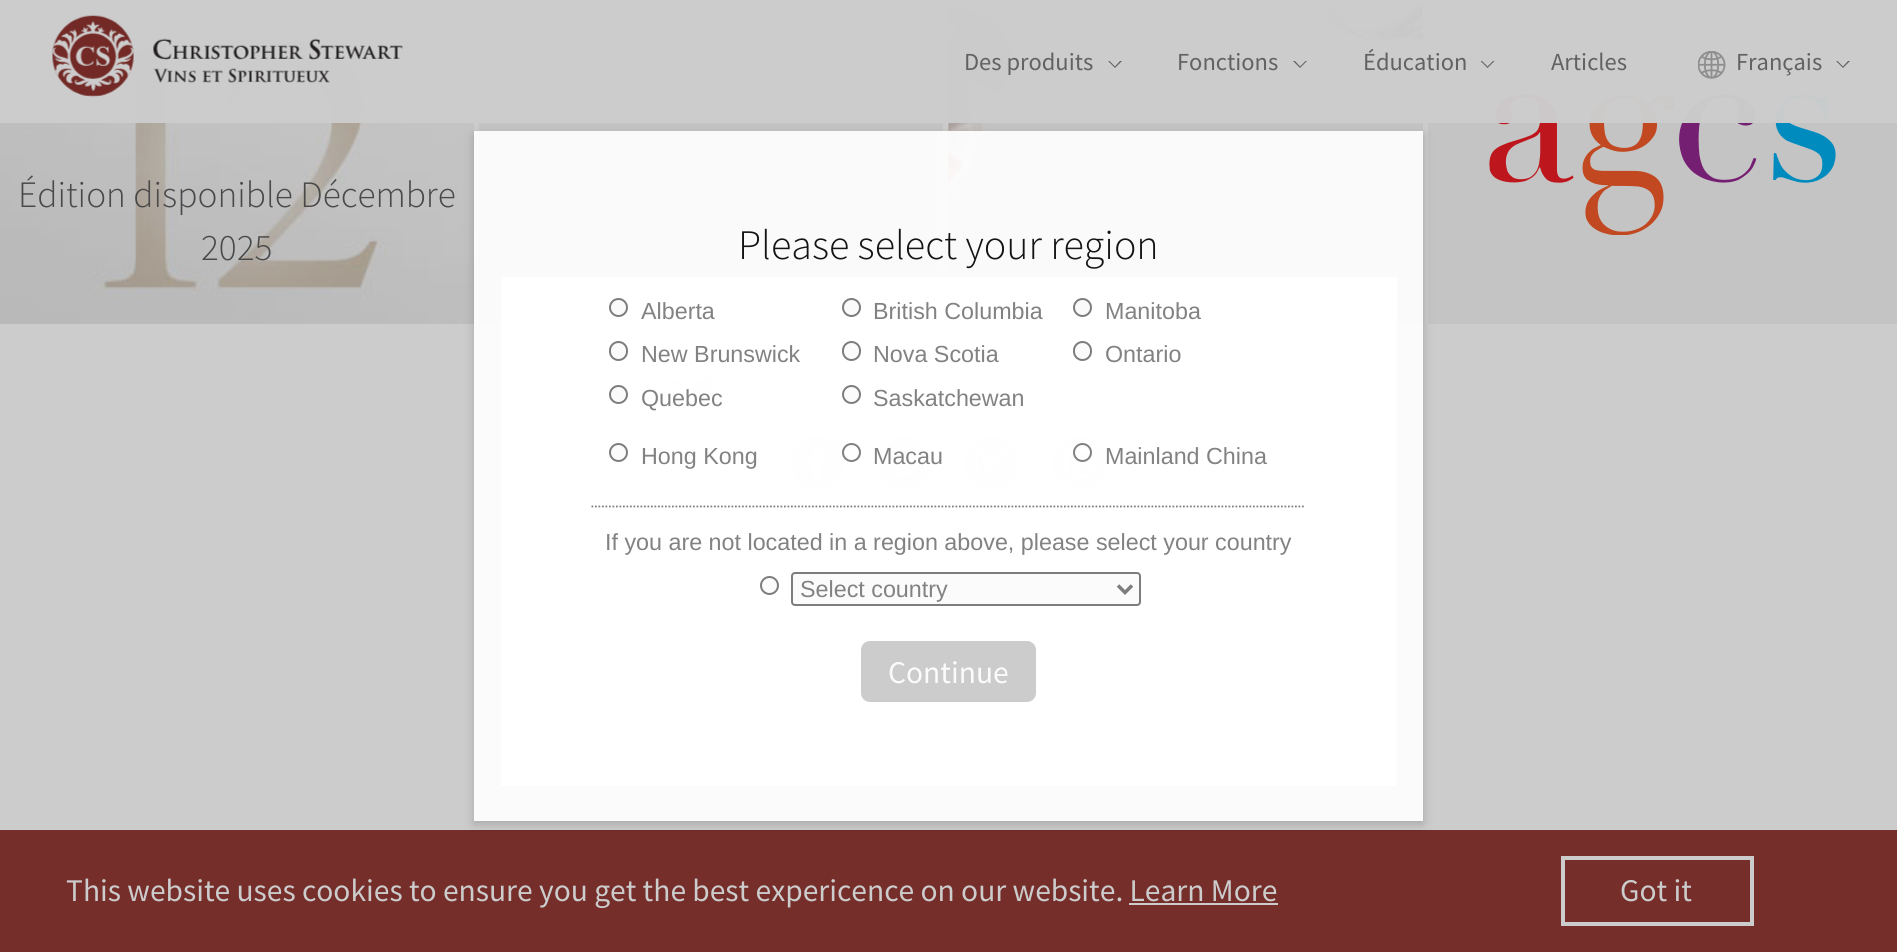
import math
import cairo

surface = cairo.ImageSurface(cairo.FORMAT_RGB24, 1897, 952)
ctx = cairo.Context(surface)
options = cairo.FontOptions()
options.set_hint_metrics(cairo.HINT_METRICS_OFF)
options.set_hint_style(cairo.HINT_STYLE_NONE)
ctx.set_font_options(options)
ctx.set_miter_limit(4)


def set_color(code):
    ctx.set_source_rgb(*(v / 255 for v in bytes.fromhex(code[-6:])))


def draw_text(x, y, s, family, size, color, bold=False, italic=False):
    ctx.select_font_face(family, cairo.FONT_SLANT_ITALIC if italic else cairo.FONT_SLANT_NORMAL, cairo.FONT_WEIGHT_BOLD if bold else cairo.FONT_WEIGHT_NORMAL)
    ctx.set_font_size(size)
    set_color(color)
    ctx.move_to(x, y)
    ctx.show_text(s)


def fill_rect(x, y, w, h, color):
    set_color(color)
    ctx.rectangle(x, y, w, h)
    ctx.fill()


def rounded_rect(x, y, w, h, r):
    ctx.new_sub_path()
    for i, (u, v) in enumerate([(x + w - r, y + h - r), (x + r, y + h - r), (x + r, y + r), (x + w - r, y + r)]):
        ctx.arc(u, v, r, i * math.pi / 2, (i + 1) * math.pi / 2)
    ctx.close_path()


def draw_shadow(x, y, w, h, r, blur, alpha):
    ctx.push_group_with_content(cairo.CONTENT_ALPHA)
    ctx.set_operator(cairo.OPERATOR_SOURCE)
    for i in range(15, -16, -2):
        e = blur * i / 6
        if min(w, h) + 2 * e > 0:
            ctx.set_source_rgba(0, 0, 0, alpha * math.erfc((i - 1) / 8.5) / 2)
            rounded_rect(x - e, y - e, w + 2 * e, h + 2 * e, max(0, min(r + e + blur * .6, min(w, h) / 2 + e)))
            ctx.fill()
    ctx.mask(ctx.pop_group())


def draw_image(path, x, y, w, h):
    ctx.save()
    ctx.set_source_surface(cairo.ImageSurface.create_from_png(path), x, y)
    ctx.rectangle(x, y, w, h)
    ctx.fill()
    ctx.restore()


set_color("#cccccc")
ctx.paint()
fill_rect(479, 5, 944, 319, "#c4c4c4")
fill_rect(943, 0, 5, 324, "#cccccc")
fill_rect(0, 5, 474, 319, "#c4c4c4")
draw_image("assets/img3.png", 0, 32, 474, 292)
draw_image("assets/img4.png", 948, 0, 475, 200)
fill_rect(949, 0, 474, 5, "#cccccc")
fill_rect(1428, 5, 469, 319, "#c4c4c4")
draw_image("assets/img5.png", 1489, 95, 347, 140)
ctx.set_source_rgba(0.8, 0.8, 0.8, 0.98)
ctx.rectangle(0, 0, 1897, 123)
ctx.fill()
draw_image("assets/img1.png", 52, 15, 351, 82)
draw_text(964, 70, "Des produits", "Source Sans Pro", 24.5, "#626262")
ctx.new_path()
ctx.move_to(1108, 61)
ctx.line_to(1122, 61)
ctx.line_to(1115, 68)
ctx.close_path()
ctx.fill()
set_color("#cccccc")
ctx.new_path()
ctx.move_to(1109.5, 61)
ctx.line_to(1120, 61)
ctx.line_to(1115, 66.5)
ctx.close_path()
ctx.fill()
draw_text(1177, 70, "Fonctions", "Source Sans Pro", 24.5, "#626262")
ctx.new_path()
ctx.move_to(1293, 61)
ctx.line_to(1307, 61)
ctx.line_to(1300, 68)
ctx.close_path()
ctx.fill()
set_color("#cccccc")
ctx.new_path()
ctx.move_to(1295, 61)
ctx.line_to(1305.5, 61)
ctx.line_to(1300, 66.5)
ctx.close_path()
ctx.fill()
draw_text(1363, 70, "Éducation", "Source Sans Pro", 24.5, "#626262")
ctx.new_path()
ctx.move_to(1480.5, 61)
ctx.line_to(1494.5, 61)
ctx.line_to(1487.5, 68)
ctx.close_path()
ctx.fill()
set_color("#cccccc")
ctx.new_path()
ctx.move_to(1482, 61)
ctx.line_to(1493, 61)
ctx.line_to(1487.5, 66.5)
ctx.close_path()
ctx.fill()
draw_text(1551, 70, "Articles", "Source Sans Pro", 24.5, "#626262")
draw_image("assets/img2.png", 1698, 51, 28, 28)
draw_text(1736, 70, "Français", "Source Sans Pro", 24.5, "#626262")
ctx.new_path()
ctx.move_to(1836, 61)
ctx.line_to(1850, 61)
ctx.line_to(1843, 68)
ctx.close_path()
ctx.fill()
set_color("#cccccc")
ctx.new_path()
ctx.move_to(1837.5, 61)
ctx.line_to(1848, 61)
ctx.line_to(1843, 66.5)
ctx.close_path()
ctx.fill()
draw_text(18, 207, "Édition disponible Décembre", "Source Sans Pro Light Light", 37.25, "#494949")
draw_text(201, 260, "2025", "Source Sans Pro Light Light", 37.25, "#494949")
draw_image("assets/img6.png", 669, 376, 50, 26)
set_color("#9fa0a1")
ctx.arc(818, 463, 27, 0, 2 * math.pi)
ctx.fill()
set_color("#cccccc")
ctx.new_path()
ctx.move_to(819.5, 481)
ctx.line_to(819.5, 465)
ctx.line_to(825, 465)
ctx.line_to(826, 458.5)
ctx.line_to(819.5, 458.5)
ctx.curve_to(819.5, 452, 819, 451.5, 826, 451.5)
ctx.line_to(826, 446)
ctx.line_to(819.5, 446)
ctx.curve_to(813, 447.5, 813.5, 453.5, 813.5, 459)
ctx.line_to(808, 459)
ctx.line_to(808, 465)
ctx.line_to(813, 465)
ctx.line_to(813, 481)
ctx.close_path()
ctx.fill()
draw_image("assets/img7.png", 879, 436, 54, 54)
draw_image("assets/img8.png", 964, 436, 55, 54)
draw_image("assets/img9.png", 1052, 436, 54, 54)
fill_rect(0, 830, 1897, 122, "#752e2a")
ctx.save()
ctx.set_fill_rule(cairo.FILL_RULE_EVEN_ODD)
ctx.new_path()
ctx.move_to(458, 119)
ctx.line_to(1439, 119)
ctx.line_to(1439, 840)
ctx.line_to(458, 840)
ctx.close_path()
ctx.move_to(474, 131)
ctx.line_to(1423, 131)
ctx.line_to(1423, 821)
ctx.line_to(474, 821)
ctx.close_path()
ctx.clip()
set_color("#000000")
draw_shadow(474, 135, 949, 689, 0, 5, 0.18)
ctx.restore()
ctx.set_source_rgba(1, 1, 1, 0.92)
ctx.rectangle(474, 131, 949, 690)
ctx.fill()
draw_text(738, 259, "Please select your region", "Source Sans Pro Light Light", 42, "#141414")
ctx.set_source_rgba(1, 1, 1, 0.92)
ctx.rectangle(501, 277, 896, 509)
ctx.fill()
set_color("#fafafa")
ctx.arc(618.5, 307.5, 8.5, 0, 2 * math.pi)
ctx.fill_preserve()
set_color("#7c7c7c")
ctx.stroke()
draw_text(641, 319, "Alberta", "Liberation Sans", 23.3, "#828282")
set_color("#fafafa")
ctx.new_path()
ctx.arc(851.5, 307.5, 8.5, 0, 2 * math.pi)
ctx.fill_preserve()
set_color("#7c7c7c")
ctx.stroke()
draw_text(873, 319, "British Columbia", "Liberation Sans", 23.3, "#828282")
set_color("#fafafa")
ctx.new_path()
ctx.arc(1082.5, 307.5, 8.5, 0, 2 * math.pi)
ctx.fill_preserve()
set_color("#7c7c7c")
ctx.stroke()
draw_text(1105, 319, "Manitoba", "Liberation Sans", 23.3, "#828282")
set_color("#fbfbfb")
rounded_rect(610, 342, 17, 18, 8.5)
ctx.fill_preserve()
set_color("#7d7d7d")
ctx.stroke()
draw_text(641, 362, "New Brunswick", "Liberation Sans", 23.3, "#828282")
set_color("#fbfbfb")
rounded_rect(843, 342, 17, 18, 8.5)
ctx.fill_preserve()
set_color("#7d7d7d")
ctx.stroke()
draw_text(873, 362, "Nova Scotia", "Liberation Sans", 23.3, "#828282")
set_color("#fbfbfb")
rounded_rect(1074, 342, 17, 18, 8.5)
ctx.fill_preserve()
set_color("#7d7d7d")
ctx.stroke()
draw_text(1105, 362, "Ontario", "Liberation Sans", 23.3, "#828282")
set_color("#fbfbfb")
ctx.new_path()
ctx.arc(618.5, 394.5, 8.5, 0, 2 * math.pi)
ctx.fill_preserve()
set_color("#7d7d7d")
ctx.stroke()
draw_text(641, 406, "Quebec", "Liberation Sans", 23.3, "#828282")
set_color("#fbfbfb")
ctx.new_path()
ctx.arc(851.5, 394.5, 8.5, 0, 2 * math.pi)
ctx.fill_preserve()
set_color("#7d7d7d")
ctx.stroke()
draw_text(873, 406, "Saskatchewan", "Liberation Sans", 23.3, "#828282")
set_color("#fbfbfb")
ctx.new_path()
ctx.arc(618.5, 452.5, 8.5, 0, 2 * math.pi)
ctx.fill_preserve()
set_color("#7d7d7d")
ctx.stroke()
draw_text(641, 464, "Hong Kong", "Liberation Sans", 23.3, "#828282")
ctx.new_path()
ctx.arc(851.5, 452.5, 8.5, 0, 2 * math.pi)
set_color("#818181")
ctx.stroke()
draw_text(873, 464, "Macau", "Liberation Sans", 23.3, "#828282")
ctx.new_path()
ctx.arc(1082.5, 452.5, 8.5, 0, 2 * math.pi)
set_color("#818181")
ctx.stroke()
draw_text(1105, 464, "Mainland China", "Liberation Sans", 23.3, "#828282")
ctx.new_path()
ctx.move_to(591.5, 506.5)
ctx.line_to(1305.5, 506.5)
set_color("#7e7e7e")
ctx.set_line_width(1.8)
ctx.set_dash([1.75, 1.75])
ctx.stroke()
draw_text(605, 550, "If you are not located in a region above, please select your country", "Liberation Sans", 23.3, "#828282")
set_color("#fbfbfb")
ctx.new_path()
ctx.arc(769.5, 585.5, 8.5, 0, 2 * math.pi)
ctx.fill_preserve()
set_color("#7d7d7d")
ctx.set_line_width(2)
ctx.set_dash([])
ctx.stroke()
set_color("#fbfbfb")
rounded_rect(792, 573, 348, 32, 3)
ctx.fill_preserve()
set_color("#7d7d7d")
ctx.stroke()
ctx.new_path()
ctx.move_to(1118, 585.5)
ctx.line_to(1125, 592.5)
ctx.line_to(1132, 585.5)
set_color("#7e7e7e")
ctx.set_line_width(3.5)
ctx.stroke()
draw_text(800, 597, "Select country", "Liberation Sans", 23.3, "#828282")
set_color("#cccccc")
rounded_rect(862, 642, 173, 59, 8)
ctx.fill_preserve()
ctx.set_line_width(2)
ctx.stroke()
draw_text(888, 683, "Continue", "Source Sans Pro", 31.5, "#fbfbfb")
draw_text(66, 901, "This website uses cookies to ensure you get the best expericence on our website. Learn More", "Source Sans Pro", 31.5, "#cccccc")
fill_rect(1129, 903, 149, 2, "#cccccc")
ctx.rectangle(1563, 858, 189, 66)
ctx.set_line_width(4)
ctx.stroke()
draw_text(1620, 901, "Got it", "Source Sans Pro", 31.5, "#cccccc")
surface.write_to_png("output.png")
